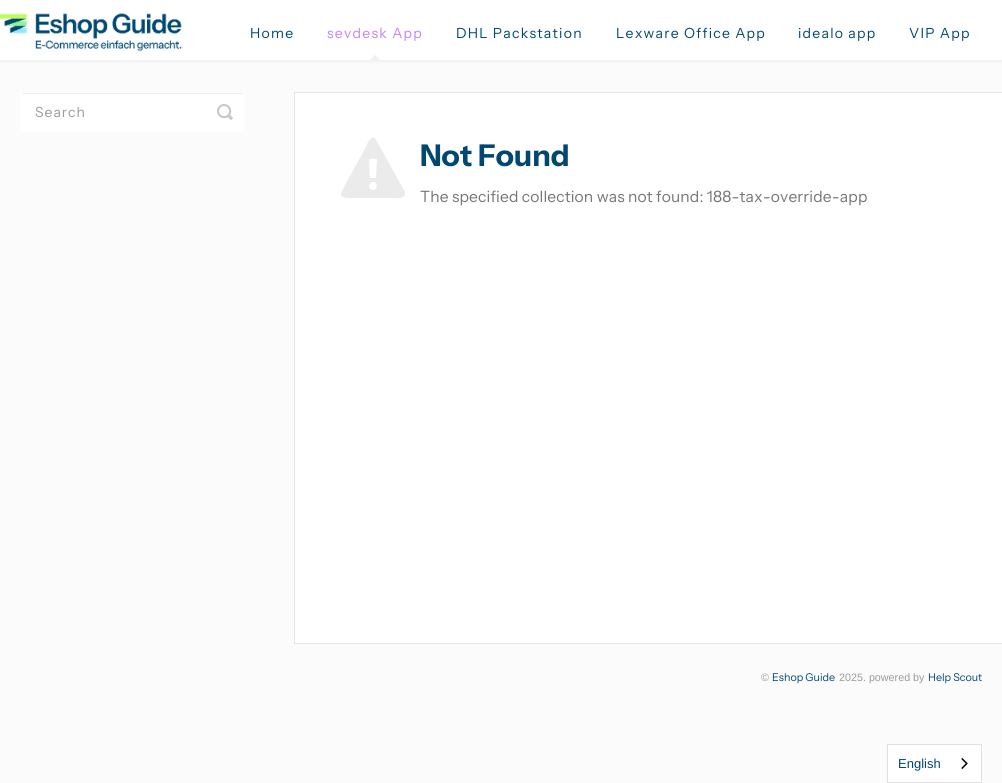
import math
import cairo

surface = cairo.ImageSurface(cairo.FORMAT_RGB24, 1002, 783)
ctx = cairo.Context(surface)
options = cairo.FontOptions()
options.set_hint_metrics(cairo.HINT_METRICS_OFF)
options.set_hint_style(cairo.HINT_STYLE_NONE)
ctx.set_font_options(options)
ctx.set_miter_limit(4)


def set_color(code):
    ctx.set_source_rgb(*(v / 255 for v in bytes.fromhex(code[-6:])))


def draw_text(x, y, s, family, size, color, bold=False, italic=False):
    ctx.select_font_face(family, cairo.FONT_SLANT_ITALIC if italic else cairo.FONT_SLANT_NORMAL, cairo.FONT_WEIGHT_BOLD if bold else cairo.FONT_WEIGHT_NORMAL)
    ctx.set_font_size(size)
    set_color(color)
    ctx.move_to(x, y)
    ctx.show_text(s)


def draw_spaced(x, y, s, letter, word):
    ctx.move_to(x, y)
    for ch in s:
        ctx.show_text(ch)
        ctx.rel_move_to(letter + word * (ch == ' '), 0)


def fill_rect(x, y, w, h, color):
    set_color(color)
    ctx.rectangle(x, y, w, h)
    ctx.fill()


def rounded_rect(x, y, w, h, r):
    ctx.new_sub_path()
    for i, (u, v) in enumerate([(x + w - r, y + h - r), (x + r, y + h - r), (x + r, y + r), (x + w - r, y + r)]):
        ctx.arc(u, v, r, i * math.pi / 2, (i + 1) * math.pi / 2)
    ctx.close_path()


def draw_shadow(x, y, w, h, r, blur, alpha):
    ctx.push_group_with_content(cairo.CONTENT_ALPHA)
    ctx.set_operator(cairo.OPERATOR_SOURCE)
    for i in range(15, -16, -2):
        e = blur * i / 6
        if min(w, h) + 2 * e > 0:
            ctx.set_source_rgba(0, 0, 0, alpha * math.erfc((i - 1) / 8.5) / 2)
            rounded_rect(x - e, y - e, w + 2 * e, h + 2 * e, max(0, min(r + e + blur * .6, min(w, h) / 2 + e)))
            ctx.fill()
    ctx.mask(ctx.pop_group())


def draw_image(path, x, y, w, h):
    ctx.save()
    ctx.set_source_surface(cairo.ImageSurface.create_from_png(path), x, y)
    ctx.rectangle(x, y, w, h)
    ctx.fill()
    ctx.restore()


set_color("#fbfbfc")
ctx.paint()
set_color("#000000")
draw_shadow(0, 1, 1002, 60, 0, 2, 0.07)
fill_rect(0, 0, 1002, 60, "#ffffff")
draw_image("assets/img1.png", 0, 13, 182, 39)
ctx.select_font_face("Instrument Sans")
ctx.set_font_size(14)
set_color("#00486f")
draw_spaced(250, 38, "Home", 1.25, 0)
set_color("#c182ff")
draw_spaced(327, 38, "sevdesk App", 1.25, 0)
set_color("#f0f0f0")
ctx.new_path()
ctx.move_to(380, 60)
ctx.line_to(370, 60)
ctx.line_to(375, 55)
ctx.close_path()
ctx.fill()
set_color("#00486f")
draw_spaced(456, 38, "DHL Packstation", 1.25, 0)
draw_spaced(616, 38, "Lexware Office App", 1.25, 0)
draw_spaced(798, 38, "idealo app", 1.25, 0)
draw_spaced(909, 38, "VIP App", 1.25, 0)
set_color("#ffffff")
rounded_rect(20, 92, 225, 40, 3)
ctx.fill()
set_color("#ececec")
ctx.new_path()
ctx.move_to(23, 94)
ctx.line_to(242, 94)
ctx.curve_to(243, 94, 244, 95, 244, 96)
ctx.curve_to(244, 95, 244, 93, 242, 93)
ctx.line_to(23, 93)
ctx.line_to(22, 94)
ctx.line_to(21, 96)
ctx.curve_to(21, 95, 22, 94, 23, 94)
ctx.close_path()
ctx.fill()
rounded_rect(20.5, 92.5, 224, 39, 2.5)
set_color("#ffffff")
ctx.set_line_width(1)
ctx.stroke()
set_color("#9b9b9b")
draw_spaced(35, 117, "Search", 1, 0)
draw_image("assets/img2.png", 217, 104, 16, 16)
set_color("#ffffff")
ctx.rectangle(294.5, 92.5, 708, 551)
ctx.fill_preserve()
set_color("#e9e5e5")
ctx.stroke()
set_color("#ebebeb")
ctx.new_path()
ctx.move_to(404, 190)
ctx.line_to(376, 140)
ctx.line_to(375, 138)
ctx.curve_to(370, 136, 367, 144, 366, 147)
ctx.line_to(345, 185)
ctx.curve_to(339, 196, 339, 198, 352, 198)
ctx.line_to(391, 198)
ctx.curve_to(395, 198, 409, 200, 404, 190)
ctx.close_path()
ctx.move_to(377, 159)
ctx.line_to(376, 178)
ctx.line_to(370, 178)
ctx.line_to(369, 159)
ctx.close_path()
ctx.move_to(373, 190)
ctx.curve_to(368, 190, 368, 182, 373, 182)
ctx.curve_to(378, 182, 378, 190, 373, 190)
ctx.close_path()
ctx.fill()
draw_text(420, 166, "Not Found", "Instrument Sans", 30, "#00486f", bold=True)
ctx.select_font_face("Instrument Sans")
ctx.set_font_size(15.6)
set_color("#757575")
draw_spaced(420, 202, "The specified collection was not found: 188-tax-override-app", 0.15, 0)
draw_text(761, 681, "©", "Liberation Sans", 10.75, "#9b9b9b")
draw_text(772, 681, "Eshop Guide", "Instrument Sans", 10.75, "#00486f")
draw_text(839, 681, "2025. powered by", "Liberation Sans", 10.75, "#9b9b9b")
draw_text(928, 681, "Help Scout", "Instrument Sans", 10.75, "#00486f")
set_color("#ffffff")
ctx.rectangle(887.5, 744.5, 94, 38)
ctx.fill_preserve()
set_color("#e0e0e0")
ctx.stroke()
draw_text(898, 768, "English", "Liberation Sans", 13, "#00486f")
draw_image("assets/img3.png", 961, 758, 7, 11)
surface.write_to_png("output.png")
